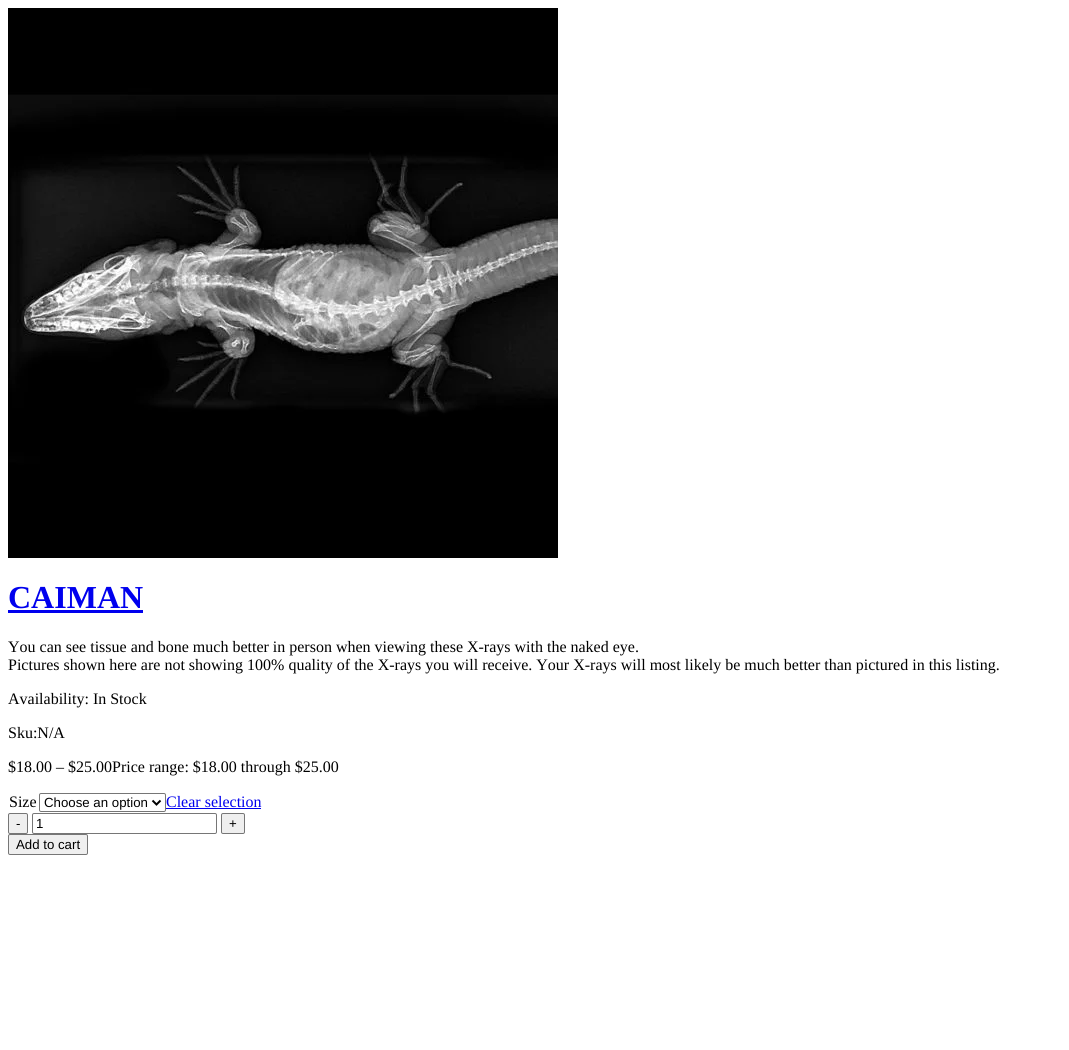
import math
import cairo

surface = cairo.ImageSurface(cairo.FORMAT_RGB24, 1069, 1050)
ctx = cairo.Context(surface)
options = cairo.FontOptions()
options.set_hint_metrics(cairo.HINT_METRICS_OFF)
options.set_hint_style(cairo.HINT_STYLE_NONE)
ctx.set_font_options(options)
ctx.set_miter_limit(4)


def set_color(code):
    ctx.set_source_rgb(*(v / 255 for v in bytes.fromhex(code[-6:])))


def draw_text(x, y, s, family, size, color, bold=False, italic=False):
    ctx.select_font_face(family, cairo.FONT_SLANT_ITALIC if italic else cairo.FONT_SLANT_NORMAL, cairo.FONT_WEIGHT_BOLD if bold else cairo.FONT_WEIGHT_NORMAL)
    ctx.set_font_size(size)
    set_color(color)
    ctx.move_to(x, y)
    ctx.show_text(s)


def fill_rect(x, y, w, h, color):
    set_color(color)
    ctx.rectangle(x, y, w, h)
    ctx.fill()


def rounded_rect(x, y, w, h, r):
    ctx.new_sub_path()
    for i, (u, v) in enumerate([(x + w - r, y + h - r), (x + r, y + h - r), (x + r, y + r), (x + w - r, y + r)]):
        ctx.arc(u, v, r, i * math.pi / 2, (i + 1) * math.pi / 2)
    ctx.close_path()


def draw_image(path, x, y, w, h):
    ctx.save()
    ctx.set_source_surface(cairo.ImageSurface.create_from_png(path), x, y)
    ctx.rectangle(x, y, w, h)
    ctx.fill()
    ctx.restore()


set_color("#ffffff")
ctx.paint()
draw_image("assets/img1.png", 8, 8, 550, 550)
draw_text(8, 608, "CAIMAN", "Liberation Serif", 32, "#0000ee", bold=True)
fill_rect(8, 610, 135, 3, "#0000ee")
draw_text(8, 652, "You can see tissue and bone much better in person when viewing these X-rays with the naked eye.", "Liberation Serif", 16, "#000000")
draw_text(8, 670, "Pictures shown here are not showing 100% quality of the X-rays you will receive. Your X-rays will most likely be much better than pictured in this listing.", "Liberation Serif", 16, "#000000")
draw_text(8, 704, "Availability: In Stock", "Liberation Serif", 16, "#000000")
draw_text(8, 738, "Sku:N/A", "Liberation Serif", 16, "#000000")
draw_text(8, 772, "$18.00 – $25.00Price range: $18.00 through $25.00", "Liberation Serif", 16, "#000000")
draw_text(9, 807, "Size", "Liberation Serif", 16, "#000000")
rounded_rect(39.5, 793.5, 126, 18, 1.5)
set_color("#767676")
ctx.set_line_width(1)
ctx.stroke()
ctx.new_path()
ctx.move_to(152.5, 800.5)
ctx.line_to(156.5, 804.5)
ctx.line_to(160.5, 800.5)
set_color("#000000")
ctx.set_line_width(2)
ctx.stroke()
draw_text(44, 807, "Choose an option", "Liberation Sans", 13.25, "#000000")
draw_text(166, 807, "Clear selection", "Liberation Serif", 16, "#0000ee")
fill_rect(166, 808, 95, 1, "#0000ee")
set_color("#efefef")
rounded_rect(8.5, 813.5, 19, 20, 1.5)
ctx.fill_preserve()
set_color("#767676")
ctx.set_line_width(1)
ctx.stroke()
draw_text(16, 828, "-", "Liberation Sans", 13.25, "#000000")
rounded_rect(32.5, 813.5, 184, 20, 1.5)
set_color("#767676")
ctx.stroke()
draw_text(36, 828, "1", "Liberation Sans", 13.25, "#000000")
set_color("#efefef")
rounded_rect(221.5, 813.5, 23, 20, 1.5)
ctx.fill_preserve()
set_color("#767676")
ctx.stroke()
draw_text(229, 828, "+", "Liberation Sans", 13.25, "#000000")
set_color("#efefef")
rounded_rect(8.5, 834.5, 79, 20, 1.5)
ctx.fill_preserve()
set_color("#767676")
ctx.stroke()
draw_text(16, 849, "Add to cart", "Liberation Sans", 13.25, "#000000")
surface.write_to_png("output.png")
